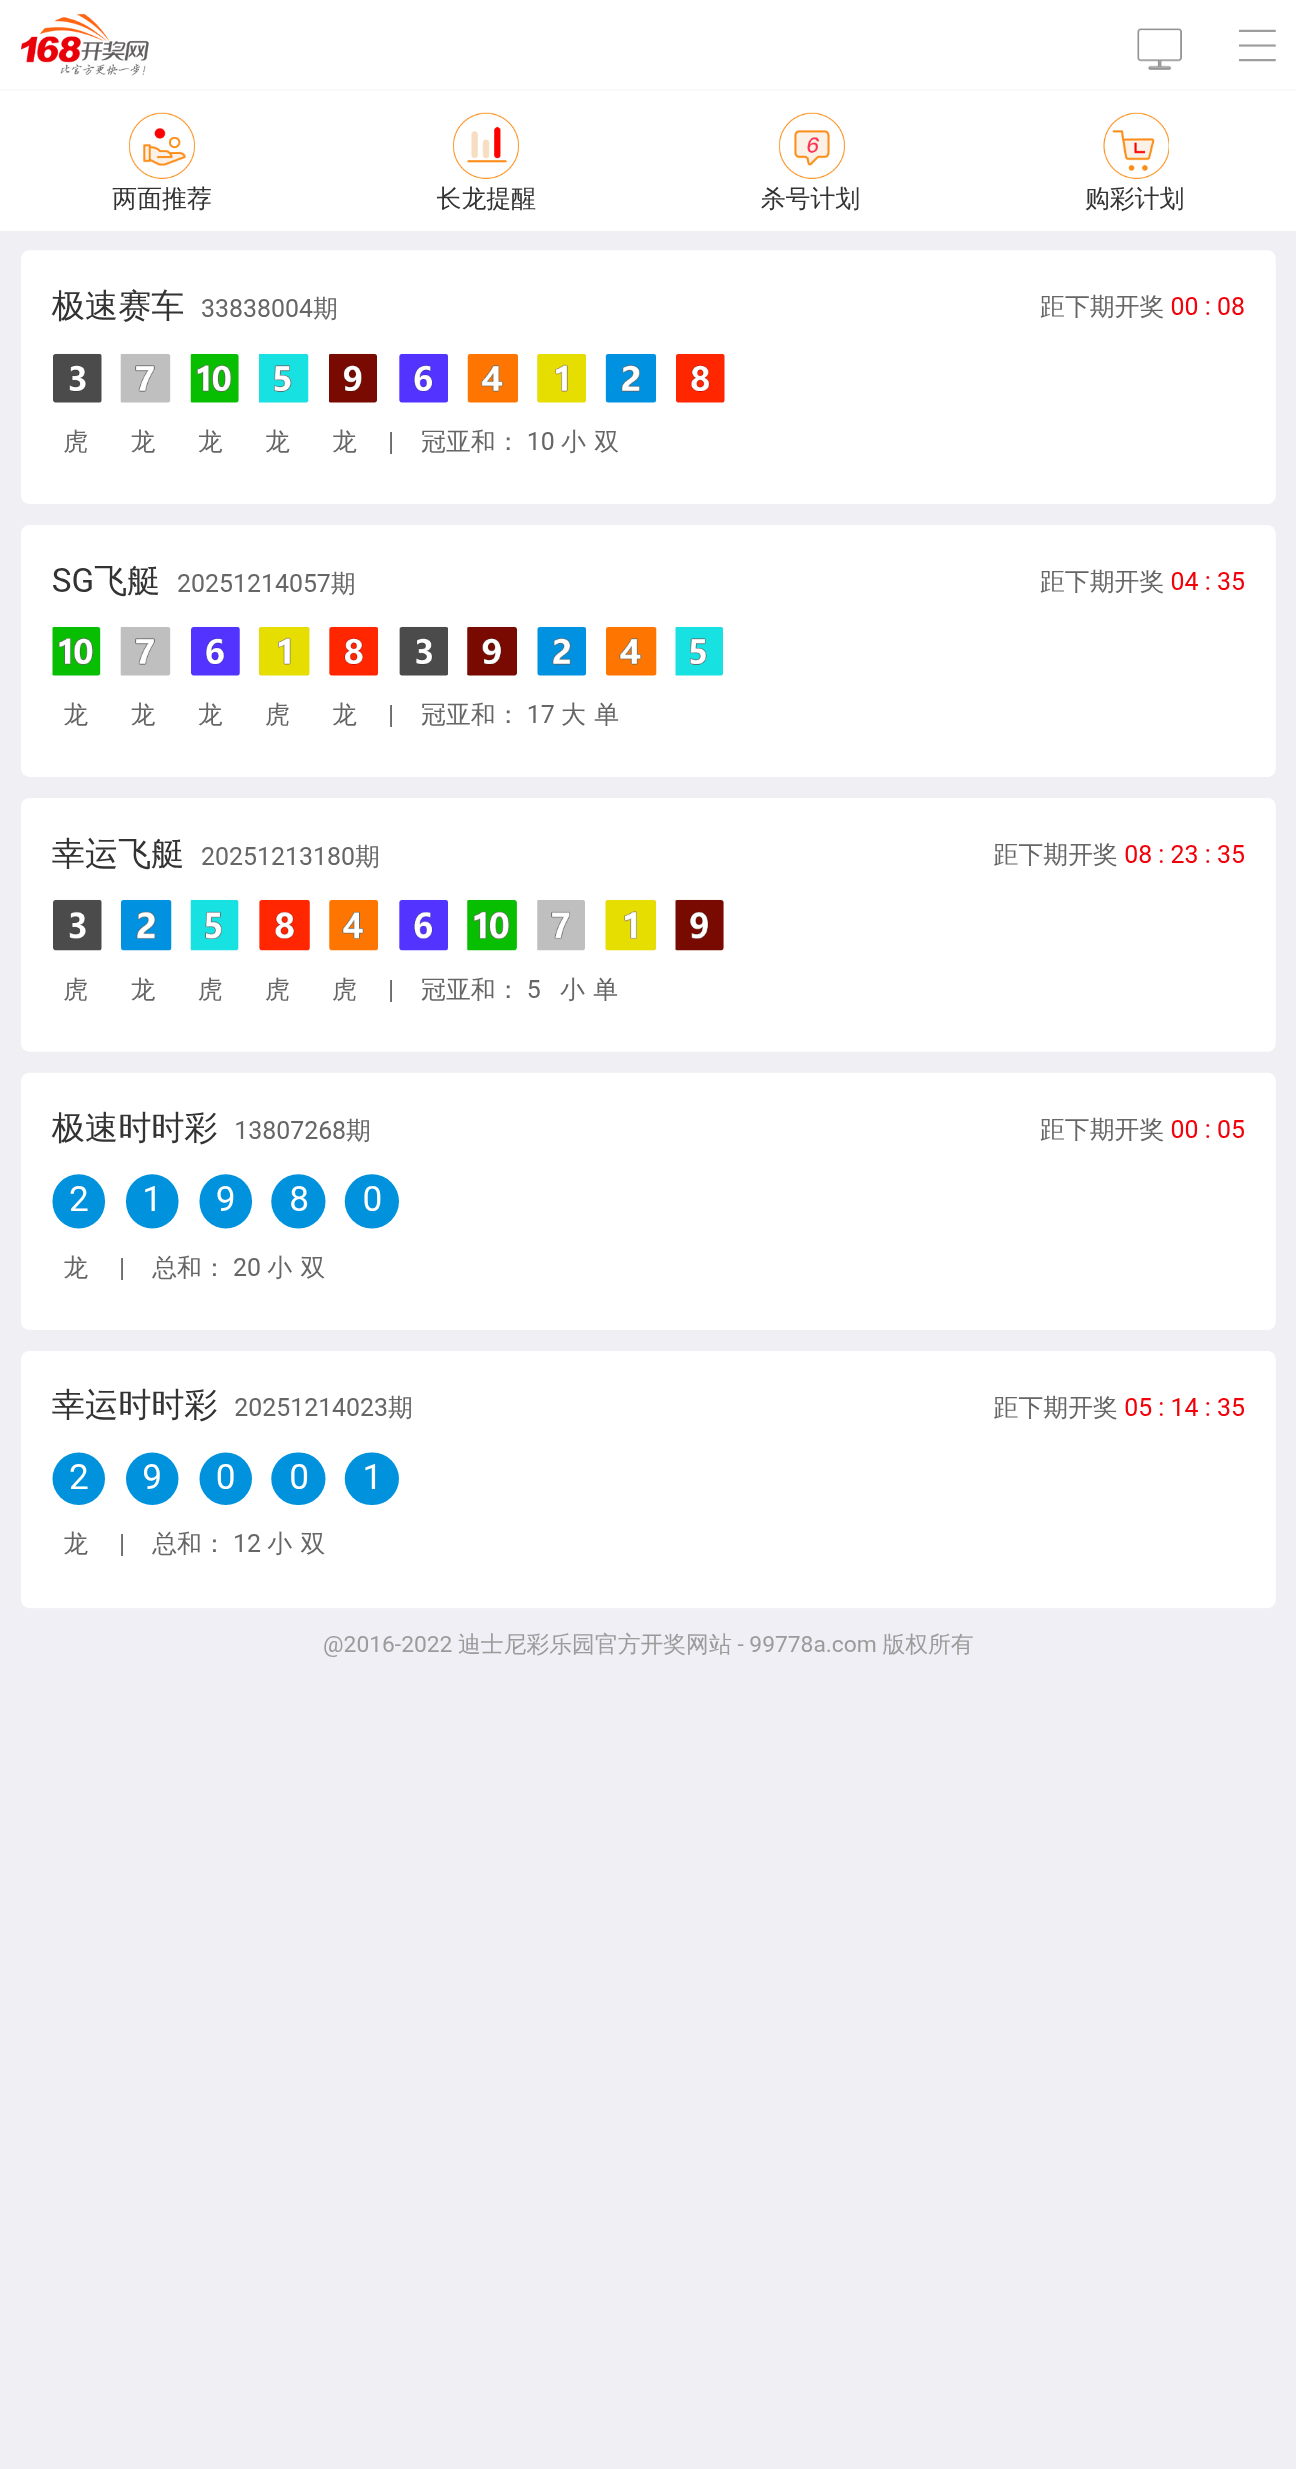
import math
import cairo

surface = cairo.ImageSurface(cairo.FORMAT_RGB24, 1296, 2469)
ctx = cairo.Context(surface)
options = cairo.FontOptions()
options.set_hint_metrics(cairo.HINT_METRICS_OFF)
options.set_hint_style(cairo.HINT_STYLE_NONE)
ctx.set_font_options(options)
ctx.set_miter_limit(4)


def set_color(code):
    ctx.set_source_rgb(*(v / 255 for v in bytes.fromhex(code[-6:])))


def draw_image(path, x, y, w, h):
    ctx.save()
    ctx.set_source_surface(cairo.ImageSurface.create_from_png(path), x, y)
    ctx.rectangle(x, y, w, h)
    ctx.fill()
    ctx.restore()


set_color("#ffffff")
ctx.paint()
draw_image("assets/img1.png", 0, 14, 1296, 2455)
surface.write_to_png("output.png")
